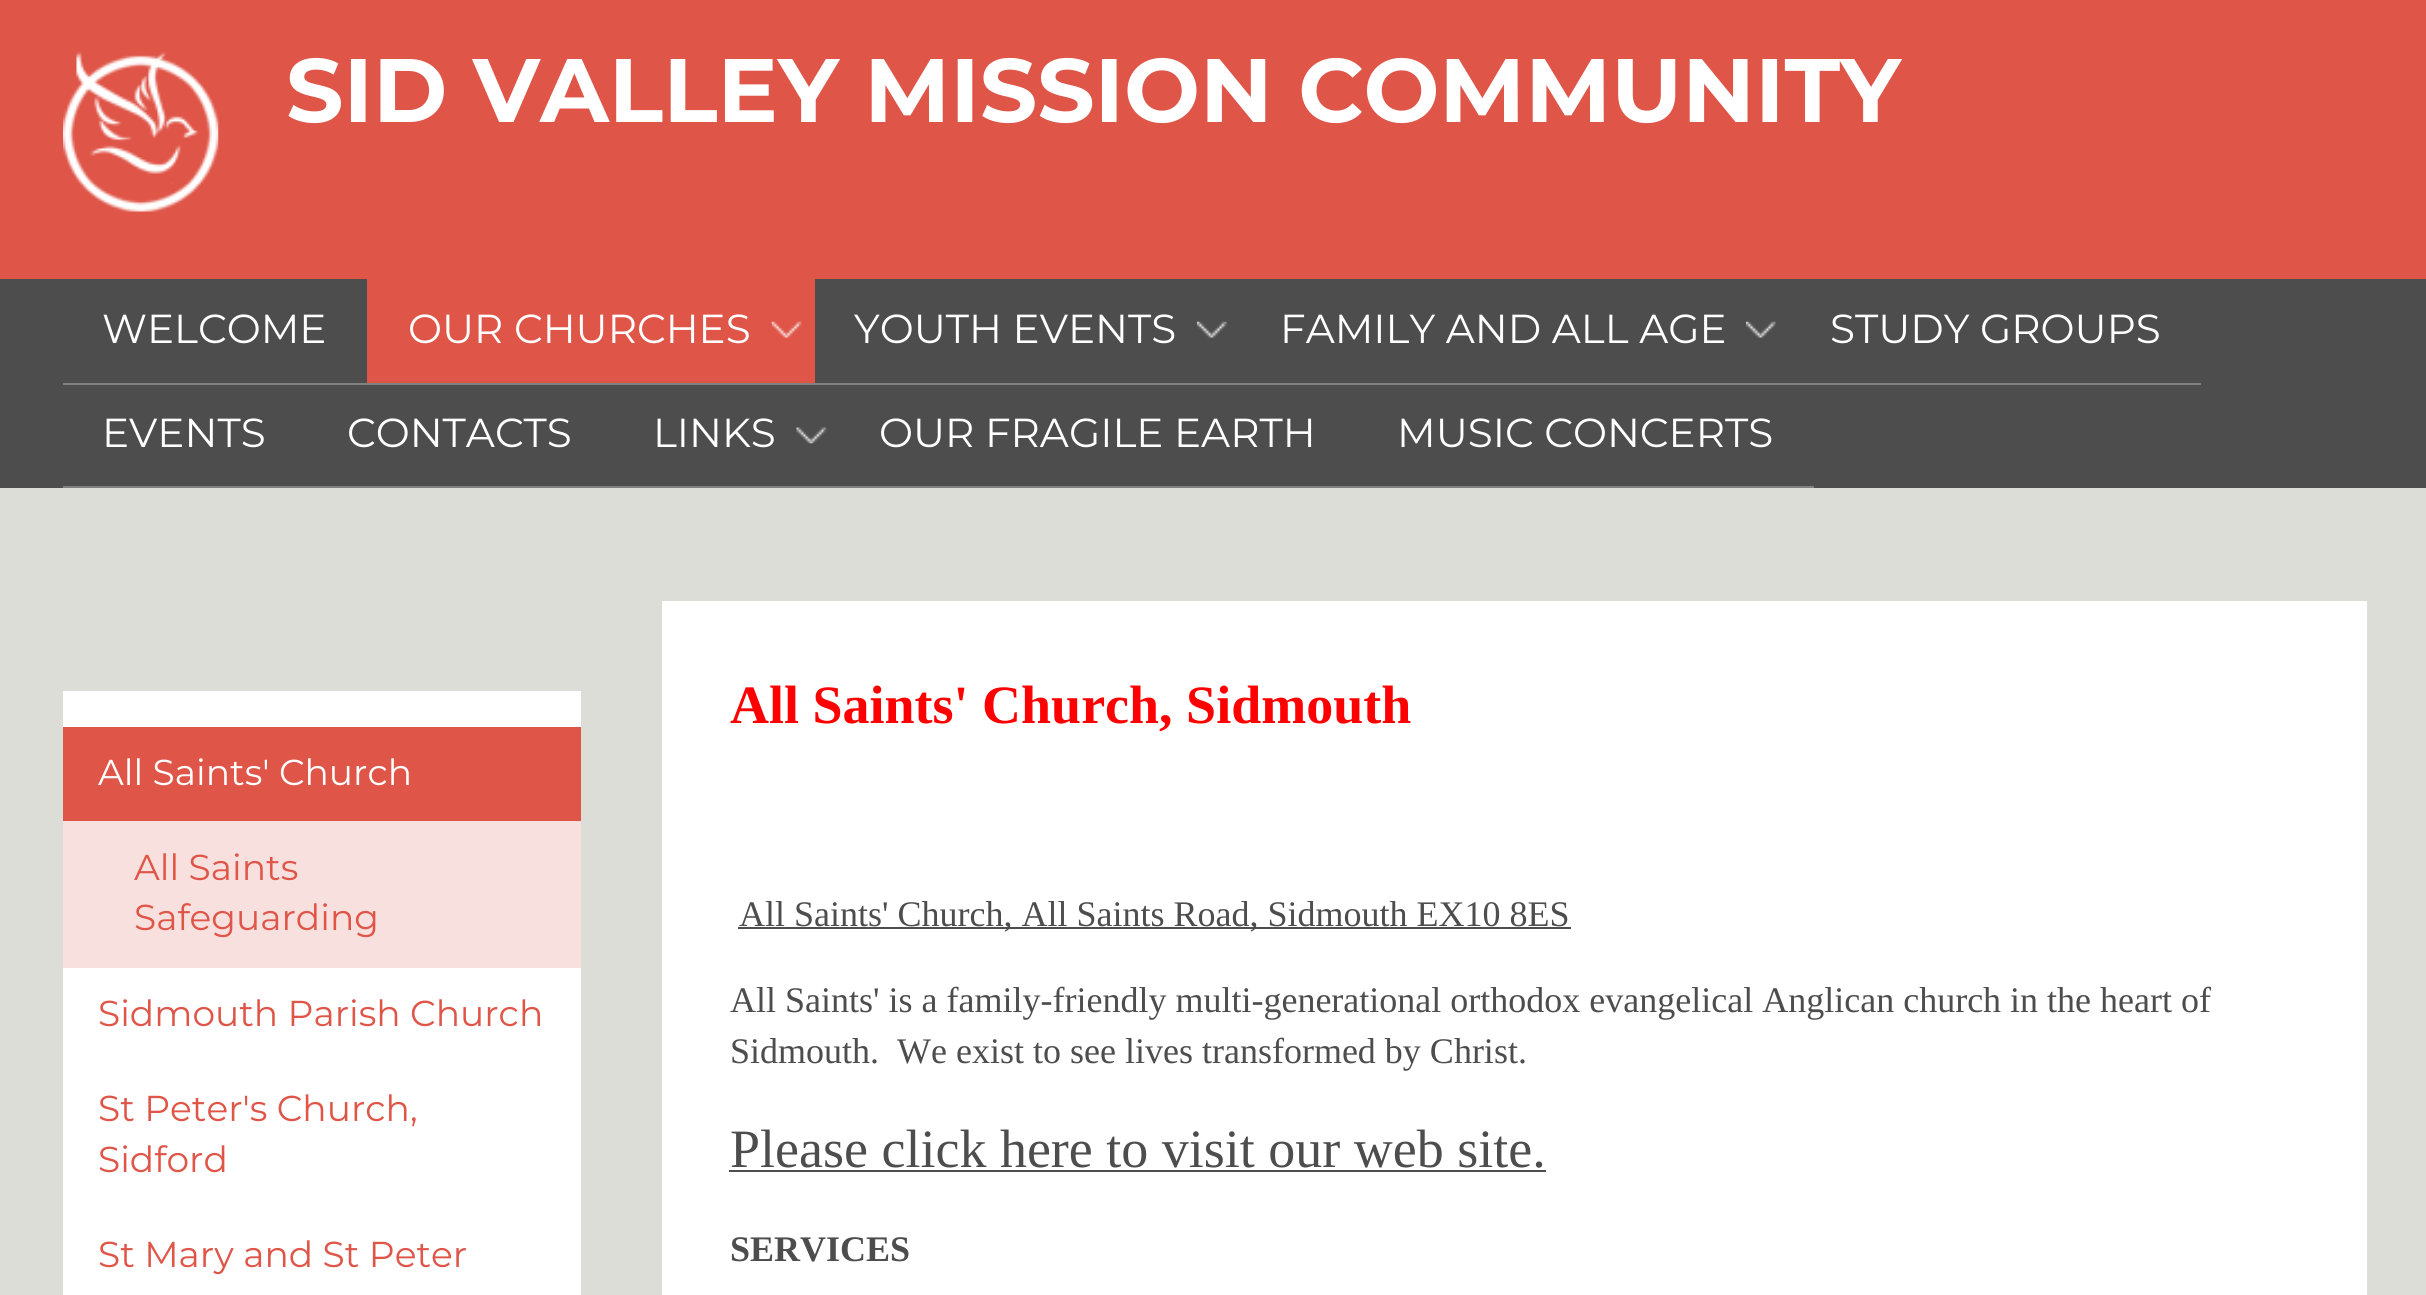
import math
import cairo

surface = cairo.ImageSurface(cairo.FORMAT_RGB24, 2426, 1295)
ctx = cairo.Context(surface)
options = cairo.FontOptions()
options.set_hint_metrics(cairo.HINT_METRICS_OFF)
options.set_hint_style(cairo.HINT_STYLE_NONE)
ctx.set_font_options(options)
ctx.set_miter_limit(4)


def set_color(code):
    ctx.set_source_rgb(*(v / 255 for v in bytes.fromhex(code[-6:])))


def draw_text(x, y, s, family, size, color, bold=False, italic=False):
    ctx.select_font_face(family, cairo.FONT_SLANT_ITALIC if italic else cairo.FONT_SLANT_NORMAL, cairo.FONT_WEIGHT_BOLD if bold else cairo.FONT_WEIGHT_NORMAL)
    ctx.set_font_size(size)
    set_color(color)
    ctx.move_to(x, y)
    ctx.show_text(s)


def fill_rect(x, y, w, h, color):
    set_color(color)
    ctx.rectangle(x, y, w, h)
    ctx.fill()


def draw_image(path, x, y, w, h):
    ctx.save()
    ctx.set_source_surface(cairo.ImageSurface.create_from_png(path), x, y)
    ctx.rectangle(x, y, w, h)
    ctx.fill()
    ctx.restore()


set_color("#dcddd7")
ctx.paint()
fill_rect(0, 0, 2426, 279, "#df5548")
draw_image("assets/img1.png", 63, 51, 156, 161)
draw_text(286, 122, "SID VALLEY MISSION COMMUNITY", "Montserrat", 90, "#ffffff", bold=True)
fill_rect(0, 279, 2426, 209, "#4d4d4d")
fill_rect(63, 383, 2138, 2, "#808080")
draw_text(102, 343, "WELCOME", "Montserrat", 40.5, "#ffffff")
fill_rect(367, 279, 448, 104, "#df5548")
draw_image("assets/img2.png", 771, 321, 31, 17)
draw_text(408, 343, "OUR CHURCHES", "Montserrat", 40.5, "#ffffff")
draw_image("assets/img3.png", 1197, 321, 30, 17)
draw_text(854, 343, "YOUTH EVENTS", "Montserrat", 40.5, "#ffffff")
draw_image("assets/img4.png", 1746, 321, 30, 17)
draw_text(1280, 343, "FAMILY AND ALL AGE", "Montserrat", 40.5, "#ffffff")
draw_text(1830, 343, "STUDY GROUPS", "Montserrat", 40.5, "#ffffff")
fill_rect(63, 486, 1751, 2, "#808080")
draw_text(102, 447, "EVENTS", "Montserrat", 40.5, "#ffffff")
draw_text(347, 447, "CONTACTS", "Montserrat", 40.5, "#ffffff")
draw_image("assets/img5.png", 796, 427, 31, 17)
draw_text(653, 447, "LINKS", "Montserrat", 40.5, "#ffffff")
draw_text(879, 447, "OUR FRAGILE EARTH", "Montserrat", 40.5, "#ffffff")
draw_text(1397, 447, "MUSIC CONCERTS", "Montserrat", 40.5, "#ffffff")
fill_rect(63, 691, 518, 604, "#ffffff")
fill_rect(63, 821, 518, 147, "#f8e0de")
fill_rect(63, 727, 518, 94, "#df5548")
draw_text(98, 785, "All Saints' Church", "Montserrat", 36, "#ffffff")
draw_text(134, 880, "All Saints", "Montserrat", 36, "#df5548")
draw_text(134, 930, "Safeguarding", "Montserrat", 36, "#df5548")
draw_text(98, 1026, "Sidmouth Parish Church", "Montserrat", 36, "#df5548")
draw_text(98, 1121, "St Peter's Church,", "Montserrat", 36, "#df5548")
draw_text(98, 1172, "Sidford", "Montserrat", 36, "#df5548")
draw_text(98, 1267, "St Mary and St Peter", "Montserrat", 36, "#df5548")
fill_rect(662, 601, 1705, 694, "#ffffff")
draw_text(730, 723, "All Saints' Church, Sidmouth", "Liberation Serif", 54, "#ff0000", bold=True)
fill_rect(738, 927, 833, 2, "#4d4d4d")
draw_text(739, 926, "All Saints' Church, All Saints Road, Sidmouth EX10 8ES", "Liberation Serif", 36, "#4d4d4d")
draw_text(730, 1012, "All Saints' is a family-friendly multi-generational orthodox evangelical Anglican church in the heart of", "Liberation Serif", 36, "#4d4d4d")
draw_text(730, 1063, "Sidmouth.  We exist to see lives transformed by Christ.", "Liberation Serif", 36, "#4d4d4d")
draw_text(730, 1167, "Please click here to visit our web site.", "Liberation Serif", 54, "#4d4d4d")
fill_rect(729, 1170, 817, 2, "#4d4d4d")
draw_text(730, 1261, "SERVICES", "Liberation Serif", 36, "#4d4d4d", bold=True)
surface.write_to_png("output.png")
